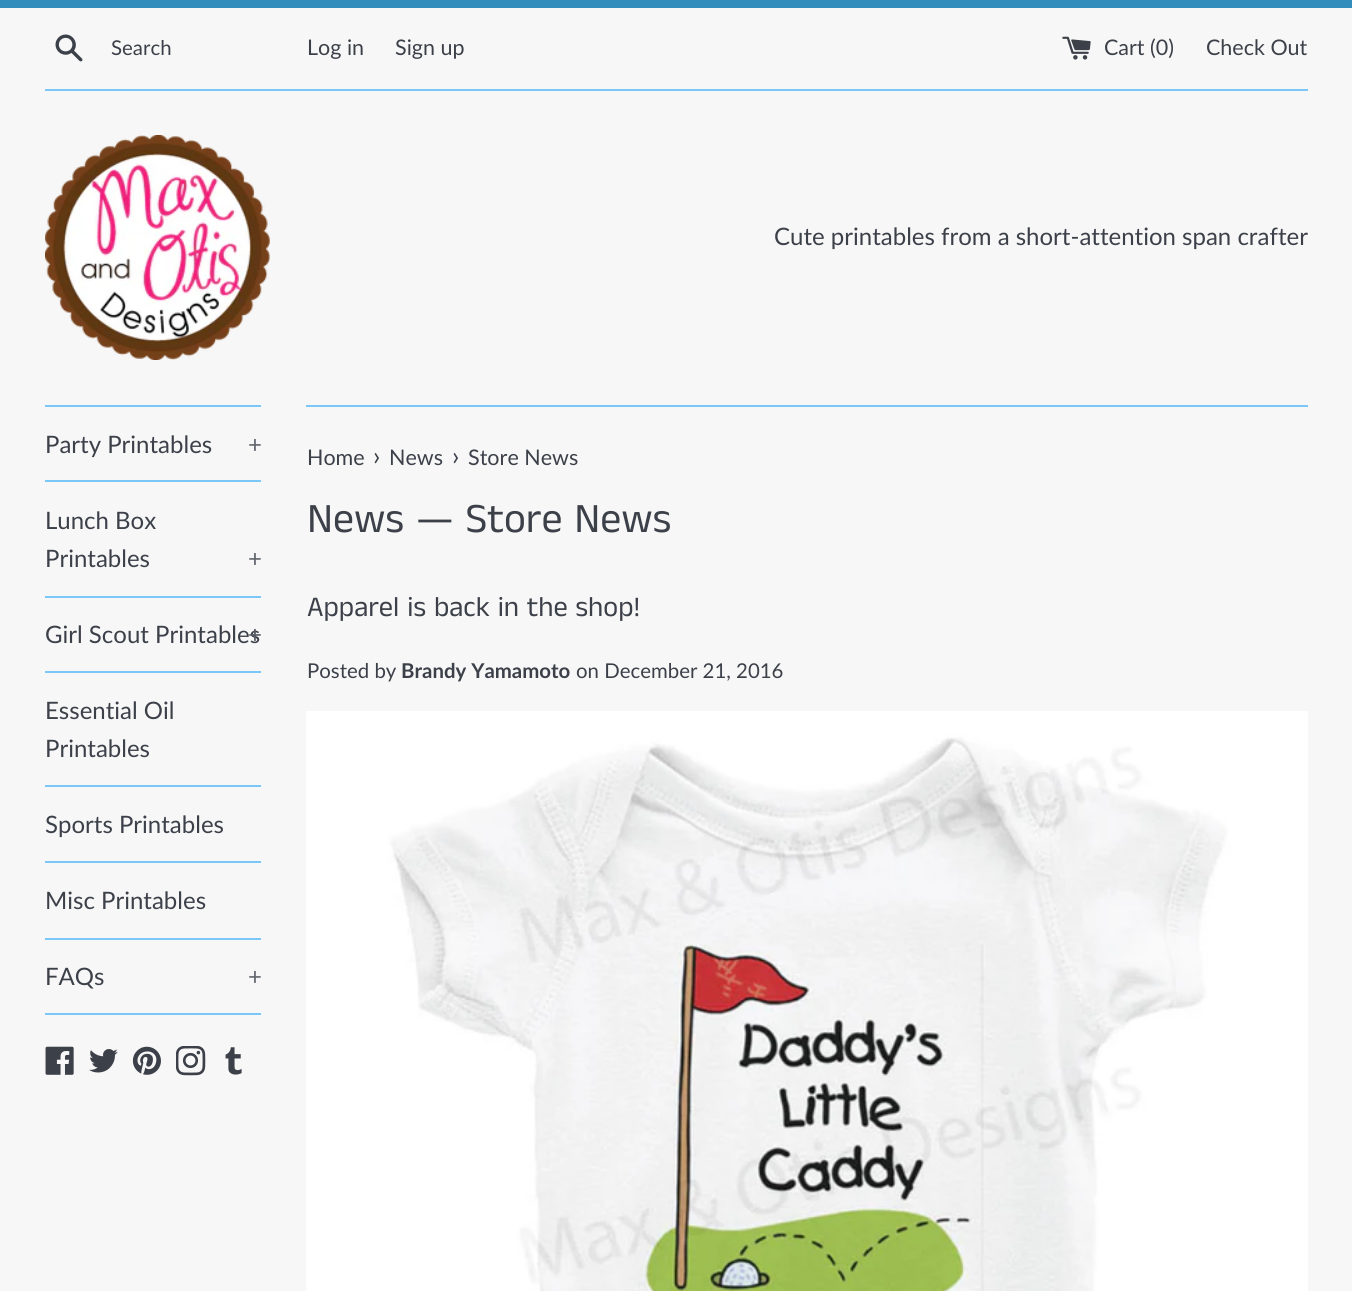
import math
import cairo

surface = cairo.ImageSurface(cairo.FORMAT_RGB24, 1352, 1291)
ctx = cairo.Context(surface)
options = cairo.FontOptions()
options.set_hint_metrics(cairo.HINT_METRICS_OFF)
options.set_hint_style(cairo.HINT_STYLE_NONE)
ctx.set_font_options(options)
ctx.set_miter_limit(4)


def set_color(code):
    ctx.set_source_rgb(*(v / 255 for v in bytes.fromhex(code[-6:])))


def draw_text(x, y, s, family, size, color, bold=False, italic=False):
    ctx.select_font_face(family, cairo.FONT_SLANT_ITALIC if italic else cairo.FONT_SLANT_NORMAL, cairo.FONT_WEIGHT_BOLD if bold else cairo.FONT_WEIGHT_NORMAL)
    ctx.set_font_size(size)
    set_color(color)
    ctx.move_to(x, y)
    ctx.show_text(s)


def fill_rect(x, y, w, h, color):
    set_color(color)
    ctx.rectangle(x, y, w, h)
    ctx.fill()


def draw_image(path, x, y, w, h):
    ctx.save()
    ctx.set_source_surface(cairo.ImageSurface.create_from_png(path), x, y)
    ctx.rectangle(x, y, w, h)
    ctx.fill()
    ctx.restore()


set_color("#f7f7f7")
ctx.paint()
fill_rect(0, 0, 1352, 8, "#338dbc")
draw_image("assets/img1.png", 55, 34, 28, 28)
draw_text(111, 55, "Search", "Lato", 20.4, "#3c4049")
draw_text(307, 55, "Log in", "Lato", 21.5, "#3c4049")
draw_text(395, 55, "Sign up", "Lato", 21.5, "#3c4049")
draw_image("assets/img2.png", 1062, 36, 29, 24)
draw_text(1104, 55, "Cart (0)", "Lato", 21.5, "#3c4049")
draw_text(1206, 55, "Check Out", "Lato", 21.5, "#3c4049")
fill_rect(45, 89, 1263, 2, "#7bc7f7")
draw_image("assets/img3.png", 45, 135, 225, 225)
draw_text(774, 245, "Cute printables from a short-attention span crafter", "Lato", 24, "#3c4049")
fill_rect(45, 405, 216, 2, "#7bc7f7")
fill_rect(45, 480, 216, 2, "#7bc7f7")
draw_text(45, 453, "Party Printables", "Lato", 24, "#3c4049")
draw_text(248, 453, "+", "Lato", 24, "#61656c")
fill_rect(45, 596, 216, 2, "#7bc7f7")
draw_text(45, 529, "Lunch Box", "Lato", 24, "#3c4049")
draw_text(45, 567, "Printables", "Lato", 24, "#3c4049")
draw_text(248, 567, "+", "Lato", 24, "#61656c")
fill_rect(45, 671, 216, 2, "#7bc7f7")
draw_text(45, 643, "Girl Scout Printables", "Lato", 24, "#3c4049")
draw_text(248, 643, "+", "Lato", 24, "#565a61")
fill_rect(45, 785, 216, 2, "#7bc7f7")
draw_text(45, 719, "Essential Oil", "Lato", 24, "#3c4049")
draw_text(45, 757, "Printables", "Lato", 24, "#3c4049")
fill_rect(45, 861, 216, 2, "#7bc7f7")
draw_text(45, 833, "Sports Printables", "Lato", 24, "#3c4049")
fill_rect(45, 938, 216, 2, "#7bc7f7")
draw_text(45, 909, "Misc Printables", "Lato", 24, "#3c4049")
fill_rect(45, 1013, 216, 2, "#7bc7f7")
draw_text(45, 985, "FAQs", "Lato", 24, "#3c4049")
draw_text(248, 985, "+", "Lato", 24, "#61656c")
draw_image("assets/img4.png", 45, 1046, 29, 29)
draw_image("assets/img5.png", 89, 1049, 29, 24)
draw_image("assets/img6.png", 132, 1046, 29, 29)
draw_image("assets/img7.png", 176, 1046, 30, 30)
draw_image("assets/img8.png", 225, 1047, 17, 28)
fill_rect(306, 405, 1002, 2, "#7bc7f7")
draw_text(307, 465, "Home", "Lato", 21.5, "#3c4049")
draw_text(373, 465, "›", "Lato", 26, "#3c4049")
draw_text(389, 465, "News", "Lato", 21.5, "#3c4049")
draw_text(452, 465, "›", "Lato", 26, "#3c4049")
draw_text(468, 465, "Store News", "Lato", 21.5, "#3c4049")
draw_text(307, 532, "News — Store News", "Anek Tamil", 42, "#3c4049")
draw_text(307, 616, "Apparel is back in the shop!", "Anek Tamil", 28.5, "#3c4049")
draw_text(307, 678, "Posted by", "Lato", 20.4, "#3c4049")
draw_text(401, 678, "Brandy Yamamoto", "Lato", 20.4, "#3c4049", bold=True)
draw_text(576, 678, "on December 21, 2016", "Lato", 20.4, "#3c4049")
draw_image("assets/img9.png", 306, 711, 1002, 580)
surface.write_to_png("output.png")
